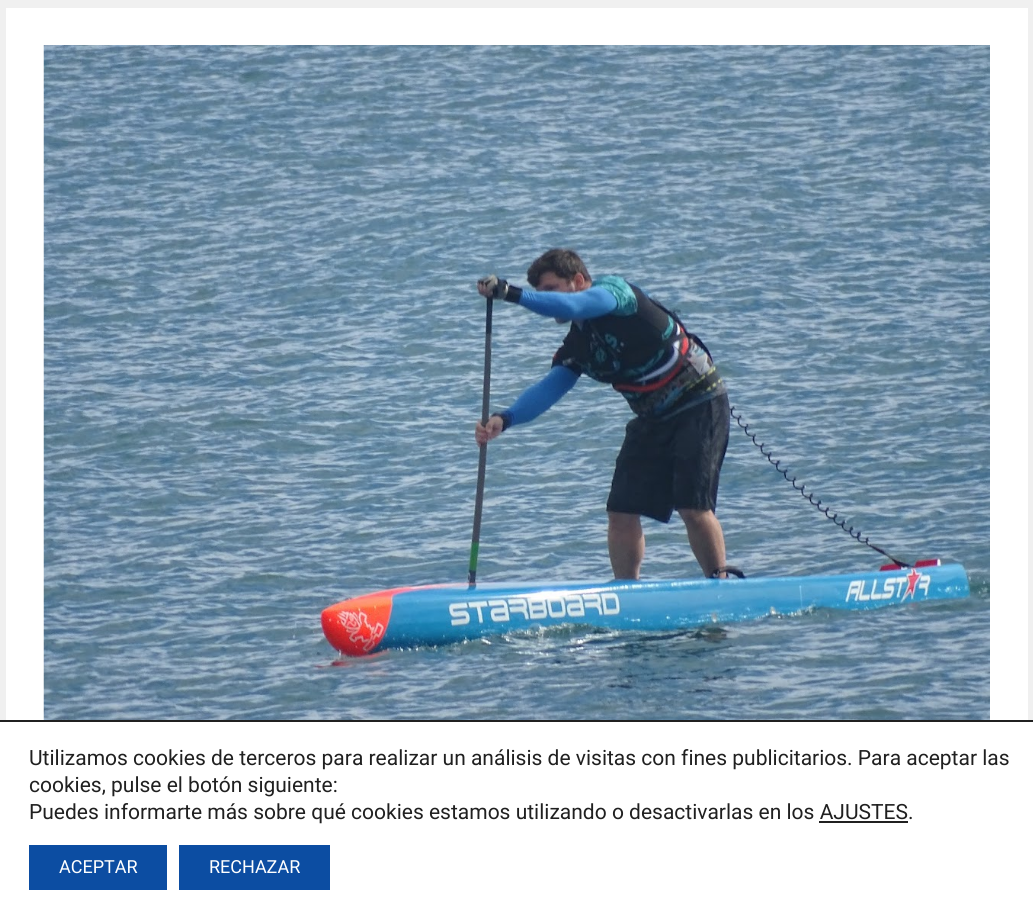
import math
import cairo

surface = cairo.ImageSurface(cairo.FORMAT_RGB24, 1033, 916)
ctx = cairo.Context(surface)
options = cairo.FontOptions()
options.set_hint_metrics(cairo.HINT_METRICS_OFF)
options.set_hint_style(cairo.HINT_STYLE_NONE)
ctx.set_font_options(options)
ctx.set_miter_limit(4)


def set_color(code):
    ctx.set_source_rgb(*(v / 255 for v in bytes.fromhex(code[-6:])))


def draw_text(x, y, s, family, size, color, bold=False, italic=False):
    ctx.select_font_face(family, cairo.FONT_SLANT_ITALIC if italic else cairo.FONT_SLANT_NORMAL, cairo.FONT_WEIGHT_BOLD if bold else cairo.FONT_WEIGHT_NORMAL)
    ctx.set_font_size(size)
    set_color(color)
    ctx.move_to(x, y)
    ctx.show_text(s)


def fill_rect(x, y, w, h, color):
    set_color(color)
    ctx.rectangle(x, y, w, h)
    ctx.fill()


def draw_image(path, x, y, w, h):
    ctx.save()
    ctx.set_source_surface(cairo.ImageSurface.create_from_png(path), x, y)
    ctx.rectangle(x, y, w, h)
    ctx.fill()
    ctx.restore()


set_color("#ffffff")
ctx.paint()
ctx.rectangle(3, -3, 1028, 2)
set_color("#f0f0f0")
ctx.set_line_width(6)
ctx.stroke()
ctx.rectangle(3, 5, 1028, 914)
ctx.stroke()
draw_image("assets/img1.png", 43, 45, 947, 675)
fill_rect(0, 722, 1033, 194, "#ffffff")
fill_rect(0, 720, 1033, 2, "#202020")
draw_text(29, 765, "Utilizamos cookies de terceros para realizar un análisis de visitas con fines publicitarios. Para aceptar las", "Roboto", 21, "#202020")
draw_text(29, 792, "cookies, pulse el botón siguiente:", "Roboto", 21, "#202020")
draw_text(29, 819, "Puedes informarte más sobre qué cookies estamos utilizando o desactivarlas en los AJUSTES.", "Roboto", 21, "#202020")
fill_rect(819, 821, 89, 2, "#202020")
fill_rect(29, 845, 138, 45, "#0c4da2")
draw_text(59, 873, "ACEPTAR", "Roboto", 18, "#ffffff")
fill_rect(179, 845, 151, 45, "#0c4da2")
draw_text(209, 873, "RECHAZAR", "Roboto", 18, "#ffffff")
surface.write_to_png("output.png")
